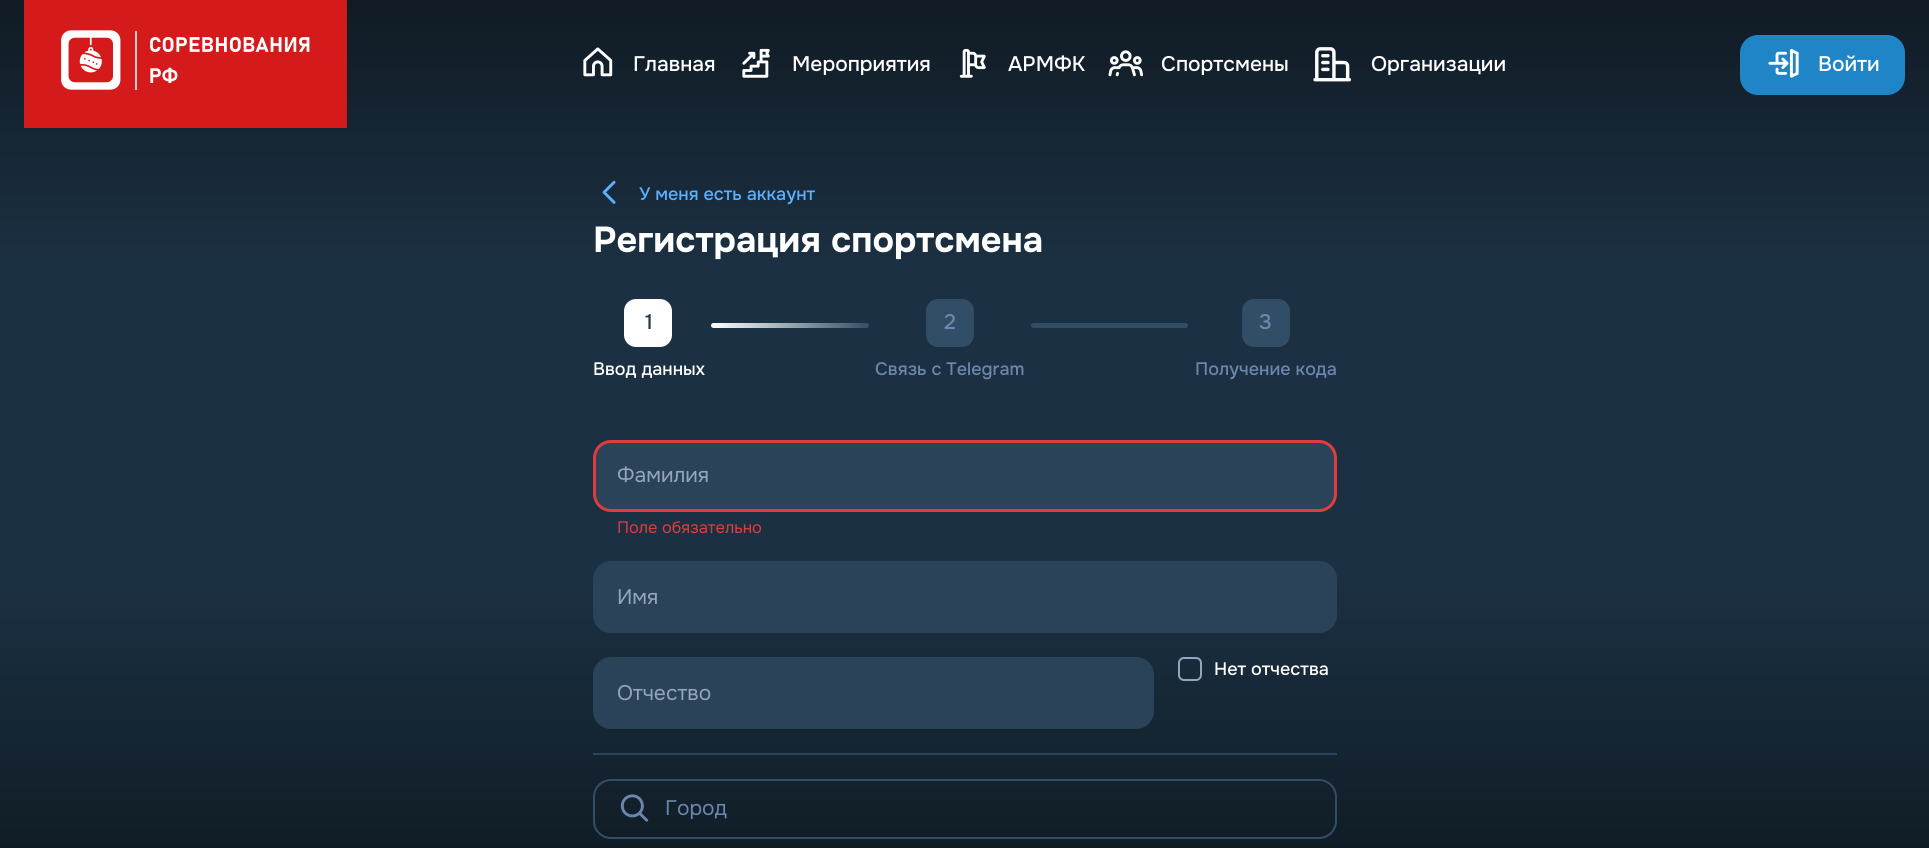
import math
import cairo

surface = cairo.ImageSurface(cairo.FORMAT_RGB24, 1929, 848)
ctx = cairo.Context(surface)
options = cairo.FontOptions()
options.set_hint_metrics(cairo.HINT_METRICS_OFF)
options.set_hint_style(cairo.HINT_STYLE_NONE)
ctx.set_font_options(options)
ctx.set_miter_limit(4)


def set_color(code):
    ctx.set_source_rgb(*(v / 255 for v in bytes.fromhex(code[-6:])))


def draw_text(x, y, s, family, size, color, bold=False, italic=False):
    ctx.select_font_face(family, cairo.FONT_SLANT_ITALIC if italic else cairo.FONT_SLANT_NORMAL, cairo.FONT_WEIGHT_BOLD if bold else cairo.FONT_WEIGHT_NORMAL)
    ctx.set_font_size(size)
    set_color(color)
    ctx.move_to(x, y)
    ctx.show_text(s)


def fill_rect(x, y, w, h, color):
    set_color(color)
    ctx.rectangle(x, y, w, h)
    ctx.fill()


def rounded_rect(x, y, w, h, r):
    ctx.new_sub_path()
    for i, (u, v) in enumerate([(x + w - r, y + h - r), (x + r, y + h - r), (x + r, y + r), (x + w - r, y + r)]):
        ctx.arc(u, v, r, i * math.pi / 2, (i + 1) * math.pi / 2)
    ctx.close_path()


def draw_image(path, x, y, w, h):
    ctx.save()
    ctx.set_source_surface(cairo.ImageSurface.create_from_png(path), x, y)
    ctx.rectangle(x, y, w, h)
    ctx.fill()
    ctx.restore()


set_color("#ffffff")
ctx.paint()
gradient = cairo.LinearGradient(965, 0, 965, 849)
gradient.add_color_stop_rgba(0, 0.063, 0.106, 0.141, 1)
gradient.add_color_stop_rgba(0, 0.063, 0.106, 0.141, 1)
gradient.add_color_stop_rgba(0.31, 0.106, 0.188, 0.259, 1)
gradient.add_color_stop_rgba(0.69, 0.106, 0.188, 0.259, 1)
gradient.add_color_stop_rgba(1, 0.063, 0.114, 0.149, 1)
ctx.set_source(gradient)
ctx.rectangle(0, 0, 1929, 848)
ctx.fill()
fill_rect(24, 0, 323, 128, "#d41a1a")
draw_image("assets/img1.png", 61, 30, 249, 60)
draw_image("assets/img2.png", 583, 47, 30, 30)
draw_text(633, 71, "Главная", "Onest Medium", 21, "#ffffff")
draw_image("assets/img3.png", 742, 48, 28, 30)
draw_text(792, 71, "Мероприятия", "Onest Medium", 21, "#ffffff")
draw_image("assets/img4.png", 959, 48, 27, 30)
draw_text(1008, 71, "АРМФК", "Onest Medium", 21, "#ffffff")
draw_image("assets/img5.png", 1108, 50, 35, 27)
draw_text(1161, 71, "Спортсмены", "Onest Medium", 21, "#ffffff")
draw_image("assets/img6.png", 1313, 47, 39, 35)
draw_text(1371, 71, "Организации", "Onest Medium", 21, "#ffffff")
set_color("#1f85c6")
rounded_rect(1740, 35, 165, 60, 18)
ctx.fill()
draw_image("assets/img7.png", 1768, 48, 31, 30)
draw_text(1818, 71, "Войти", "Onest Medium", 21, "#ffffff")
draw_image("assets/img8.png", 602, 180, 14, 24)
draw_text(639, 200, "У меня есть аккаунт", "Onest Medium", 18, "#5bb0ff")
draw_text(593, 252, "Регистрация спортсмена", "Onest", 36, "#ffffff", bold=True)
rounded_rect(624, 299, 48, 48, 12)
ctx.fill()
draw_text(645, 329, "1", "Onest Medium", 21, "#243a4d")
draw_text(593, 375, "Ввод данных", "Onest Medium", 18, "#ffffff")
gradient = cairo.LinearGradient(711, 325, 869, 325)
gradient.add_color_stop_rgba(0, 1, 1, 1, 1)
gradient.add_color_stop_rgba(1, 0.196, 0.306, 0.4, 1)
ctx.set_source(gradient)
rounded_rect(711, 323, 158, 5, 2.5)
ctx.fill()
set_color("#324e66")
rounded_rect(926, 299, 48, 48, 12)
ctx.fill()
draw_text(944, 329, "2", "Onest Medium", 21, "#6c86ad")
draw_text(875, 375, "Связь с Telegram", "Onest Medium", 18, "#6c86ad")
set_color("#324e66")
rounded_rect(1031, 323, 157, 5, 2.5)
ctx.fill()
rounded_rect(1242, 299, 48, 48, 12)
ctx.fill()
draw_text(1259, 329, "3", "Onest Medium", 21, "#6c86ad")
draw_text(1195, 375, "Получение кода", "Onest Medium", 18, "#6c86ad")
fill_rect(593, 753, 744, 2, "#2b4358")
rounded_rect(594.5, 441.5, 741, 69, 16.5)
ctx.fill_preserve()
set_color("#dd3d3d")
ctx.set_line_width(3)
ctx.stroke()
draw_text(617, 482, "Фамилия", "Onest", 21, "#94a5bf")
draw_text(617, 533, "Поле обязательно", "Onest", 16.5, "#dd3d3d")
set_color("#2b4358")
rounded_rect(593, 561, 744, 72, 18)
ctx.fill()
draw_text(617, 604, "Имя", "Onest", 21, "#94a5bf")
rounded_rect(1179, 658, 22, 22, 5)
ctx.set_line_width(2)
ctx.stroke()
draw_text(1214, 675, "Нет отчества", "Onest Medium", 18, "#ffffff")
set_color("#2b4358")
rounded_rect(593, 657, 561, 72, 18)
ctx.fill()
draw_text(617, 700, "Отчество", "Onest", 21, "#94a5bf")
rounded_rect(594, 780, 742, 58, 17)
set_color("#324e66")
ctx.stroke()
draw_image("assets/img9.png", 620, 794, 29, 28)
draw_text(665, 815, "Город", "Onest", 21, "#6c86ad")
surface.write_to_png("output.png")
